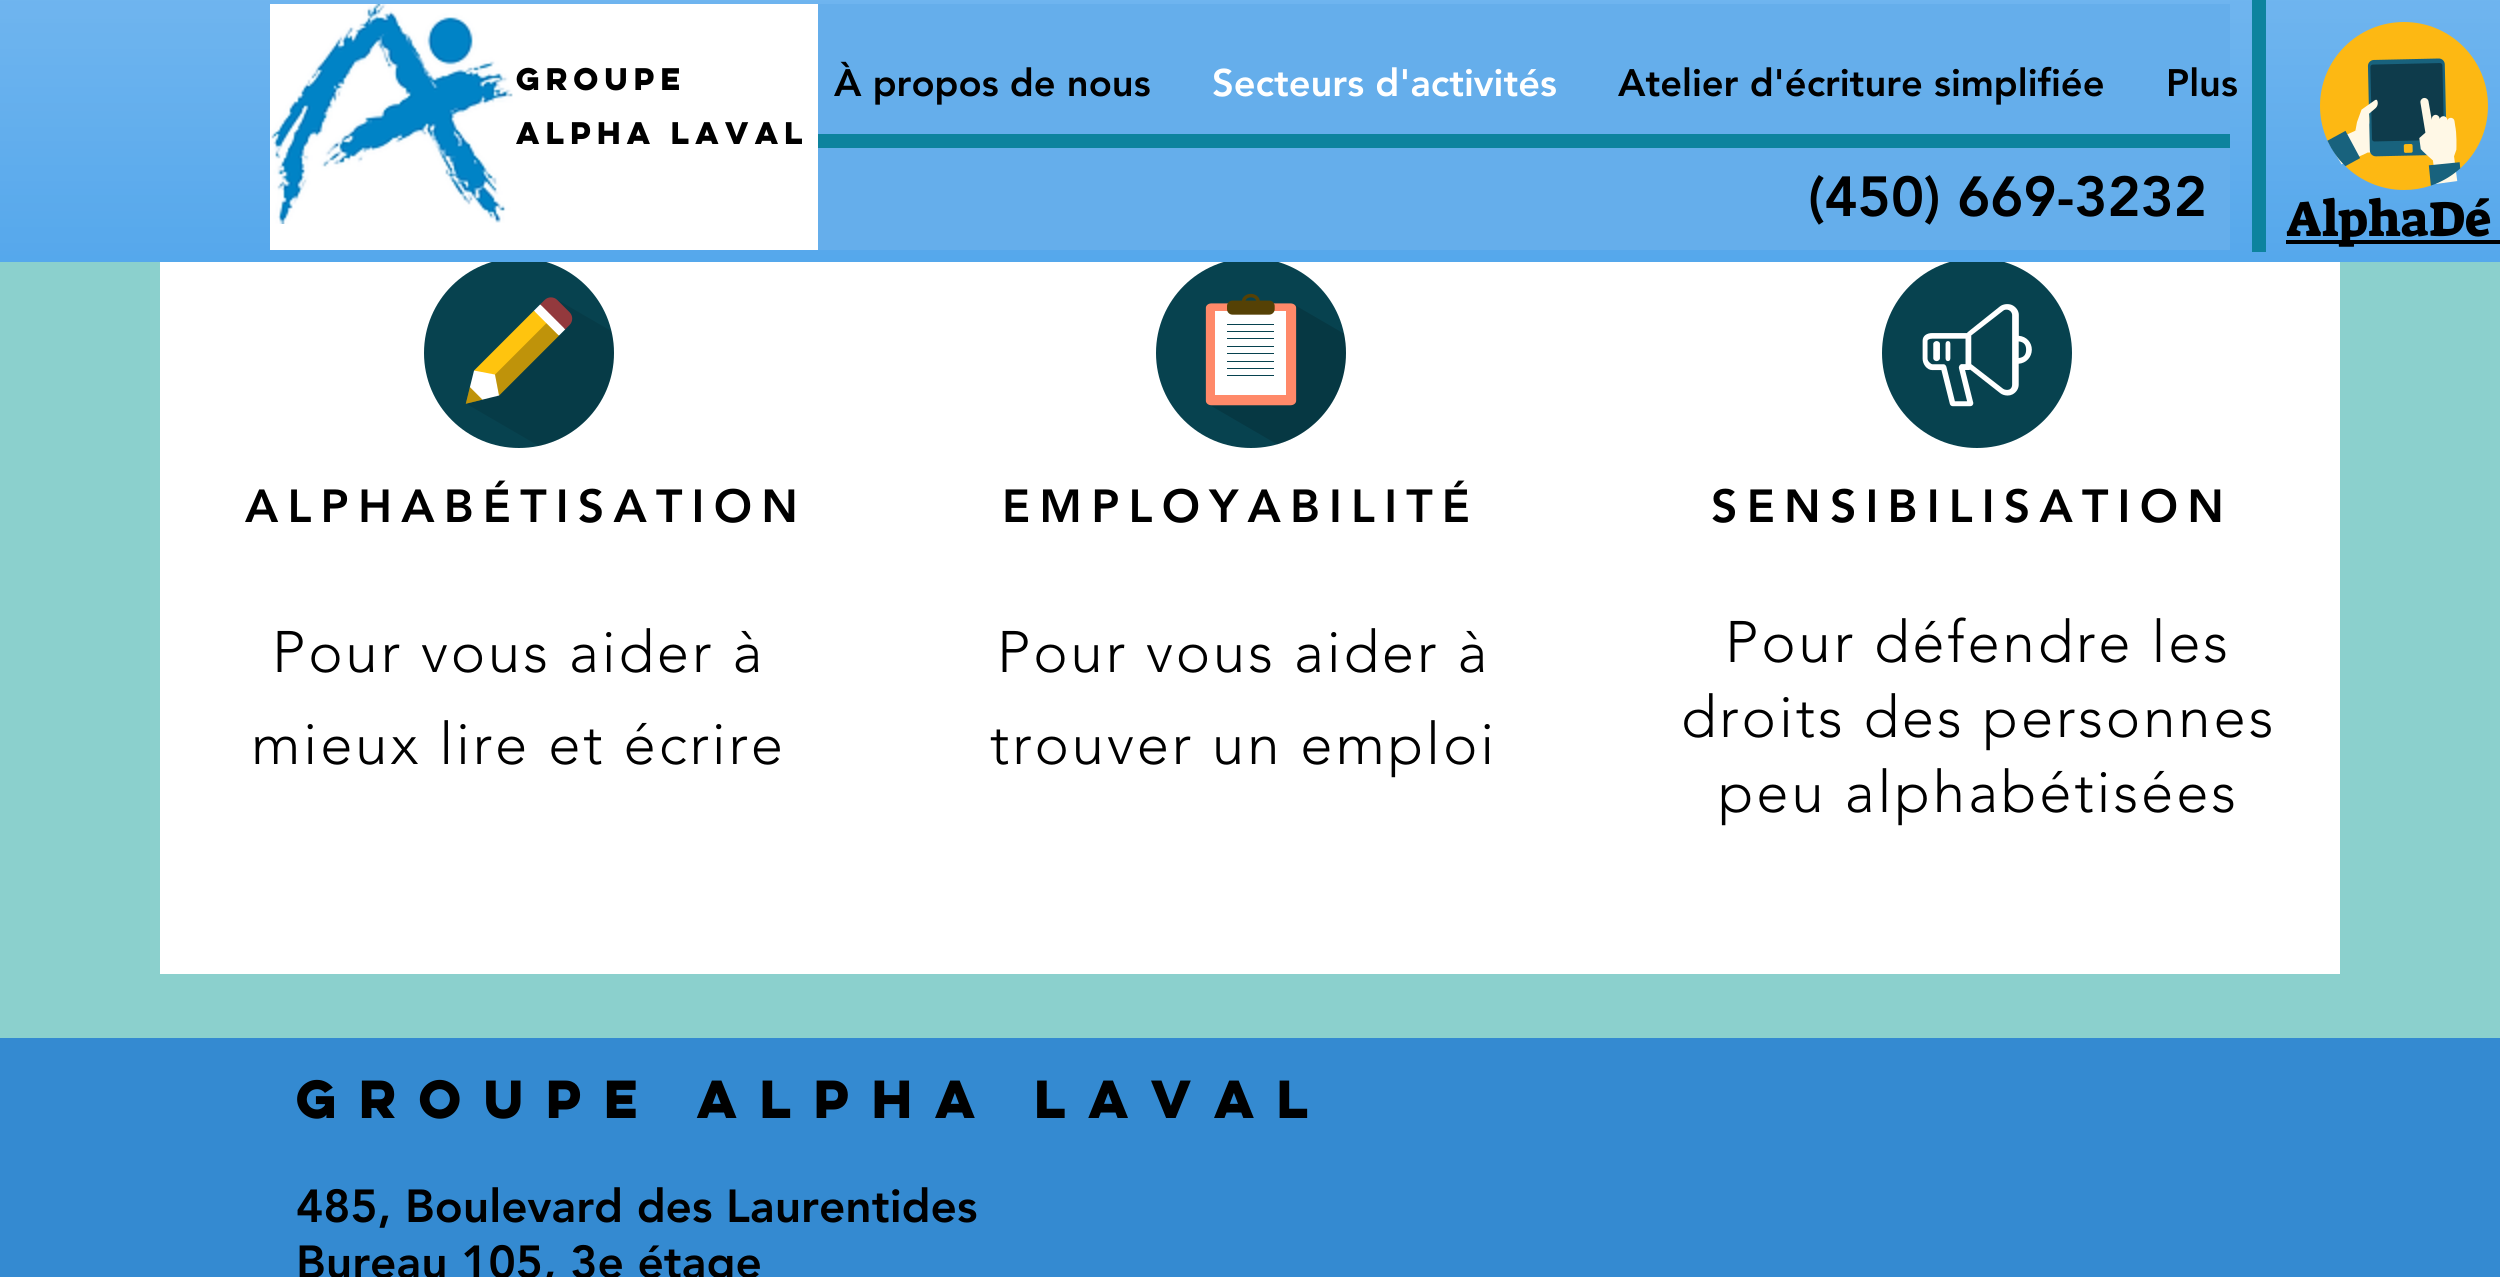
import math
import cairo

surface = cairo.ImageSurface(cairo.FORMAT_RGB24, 2500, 1277)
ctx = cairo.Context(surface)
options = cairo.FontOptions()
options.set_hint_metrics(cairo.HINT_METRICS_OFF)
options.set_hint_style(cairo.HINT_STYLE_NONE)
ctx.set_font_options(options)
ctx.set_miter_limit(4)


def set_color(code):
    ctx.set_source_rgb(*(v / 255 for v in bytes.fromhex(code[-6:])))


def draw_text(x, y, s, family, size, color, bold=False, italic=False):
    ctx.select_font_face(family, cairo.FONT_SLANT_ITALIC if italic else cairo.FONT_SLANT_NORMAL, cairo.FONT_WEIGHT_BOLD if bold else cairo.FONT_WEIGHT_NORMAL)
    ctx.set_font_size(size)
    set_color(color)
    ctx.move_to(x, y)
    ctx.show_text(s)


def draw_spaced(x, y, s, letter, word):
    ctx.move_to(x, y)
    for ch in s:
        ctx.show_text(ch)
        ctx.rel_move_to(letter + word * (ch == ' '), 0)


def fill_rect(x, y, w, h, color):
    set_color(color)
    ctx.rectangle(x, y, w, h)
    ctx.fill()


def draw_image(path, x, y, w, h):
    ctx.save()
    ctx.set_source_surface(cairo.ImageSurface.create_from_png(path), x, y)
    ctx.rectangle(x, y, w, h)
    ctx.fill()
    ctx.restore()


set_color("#8bd0cd")
ctx.paint()
fill_rect(0, 0, 2500, 262, "#3d9be9")
draw_image("assets/img1.png", 0, 0, 2500, 262)
fill_rect(270, 4, 548, 246, "#ffffff")
draw_image("assets/img2.png", 271, 4, 242, 220)
draw_text(516, 90, "GROUPE", "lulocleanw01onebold", 28, "#000000", bold=True)
draw_text(516, 144, "ALPHA LAVAL", "lulocleanw01onebold", 28, "#000000", bold=True)
fill_rect(818, 4, 1412, 246, "#65aeeb")
draw_text(834, 96, "À propos de nous", "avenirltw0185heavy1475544 Black", 38, "#000000")
draw_text(1212, 96, "Secteurs d'activités", "avenirltw0185heavy1475544 Black", 38, "#ffffff")
draw_text(1618, 96, "Atelier d'écriture simplifiée", "avenirltw0185heavy1475544 Black", 38, "#000000")
draw_text(2166, 96, "Plus", "avenirltw0185heavy1475544 Black", 38, "#000000")
draw_text(1808, 216, "(450) 669-3232", "avenirltw0185heavy1475544 Black", 56, "#000000")
fill_rect(2252, 0, 14, 252, "#0d839e")
draw_image("assets/img3.png", 2320, 22, 168, 168)
fill_rect(818, 134, 1412, 14, "#0d839e")
fill_rect(2286, 240, 214, 4, "#000000")
draw_text(2286, 236, "AlphaDé", "Suez One", 50, "#000000")
fill_rect(160, 262, 2180, 712, "#ffffff")
draw_image("assets/img4.png", 424, 262, 190, 186)
ctx.select_font_face("avenirltw0185heavy1475544 Black")
ctx.set_font_size(46)
set_color("#000000")
draw_spaced(245, 522, "ALPHABÉTISATION", 9.25, 0)
ctx.select_font_face("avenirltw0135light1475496 Light")
ctx.set_font_size(58)
draw_spaced(272, 672, "Pour vous aider à", 2.9, 0)
draw_spaced(251, 764, "mieux lire et écrire", 2.9, 0)
draw_image("assets/img5.png", 1156, 262, 190, 186)
ctx.select_font_face("avenirltw0185heavy1475544 Black")
ctx.set_font_size(46)
draw_spaced(1002, 522, "EMPLOYABILITÉ", 9.25, 0)
ctx.select_font_face("avenirltw0135light1475496 Light")
ctx.set_font_size(58)
draw_spaced(997, 672, "Pour vous aider à", 2.9, 0)
draw_spaced(990, 764, "trouver un emploi", 2.9, 0)
draw_image("assets/img6.png", 1882, 262, 190, 186)
ctx.select_font_face("avenirltw0185heavy1475544 Black")
ctx.set_font_size(46)
draw_spaced(1711, 522, "SENSIBILISATION", 9.25, 0)
ctx.select_font_face("avenirltw0135light1475496 Light")
ctx.set_font_size(58)
draw_spaced(1725, 662, "Pour défendre les", 2.9, 0)
draw_spaced(1681, 737, "droits des personnes", 2.9, 0)
draw_spaced(1718, 812, "peu alphabétisées", 2.9, 0)
fill_rect(0, 1038, 2500, 239, "#348ad1")
ctx.select_font_face("lulocleanw01onebold", cairo.FONT_SLANT_NORMAL, cairo.FONT_WEIGHT_BOLD)
ctx.set_font_size(48)
set_color("#000000")
draw_spaced(296, 1118, "GROUPE ALPHA LAVAL", 12, 0)
draw_text(296, 1222, "485, Boulevard des Laurentides", "avenirltw0185heavy1475544 Black", 46, "#000000")
draw_text(296, 1278, "Bureau 105, 3e étage", "avenirltw0185heavy1475544 Black", 46, "#000000")
surface.write_to_png("output.png")
